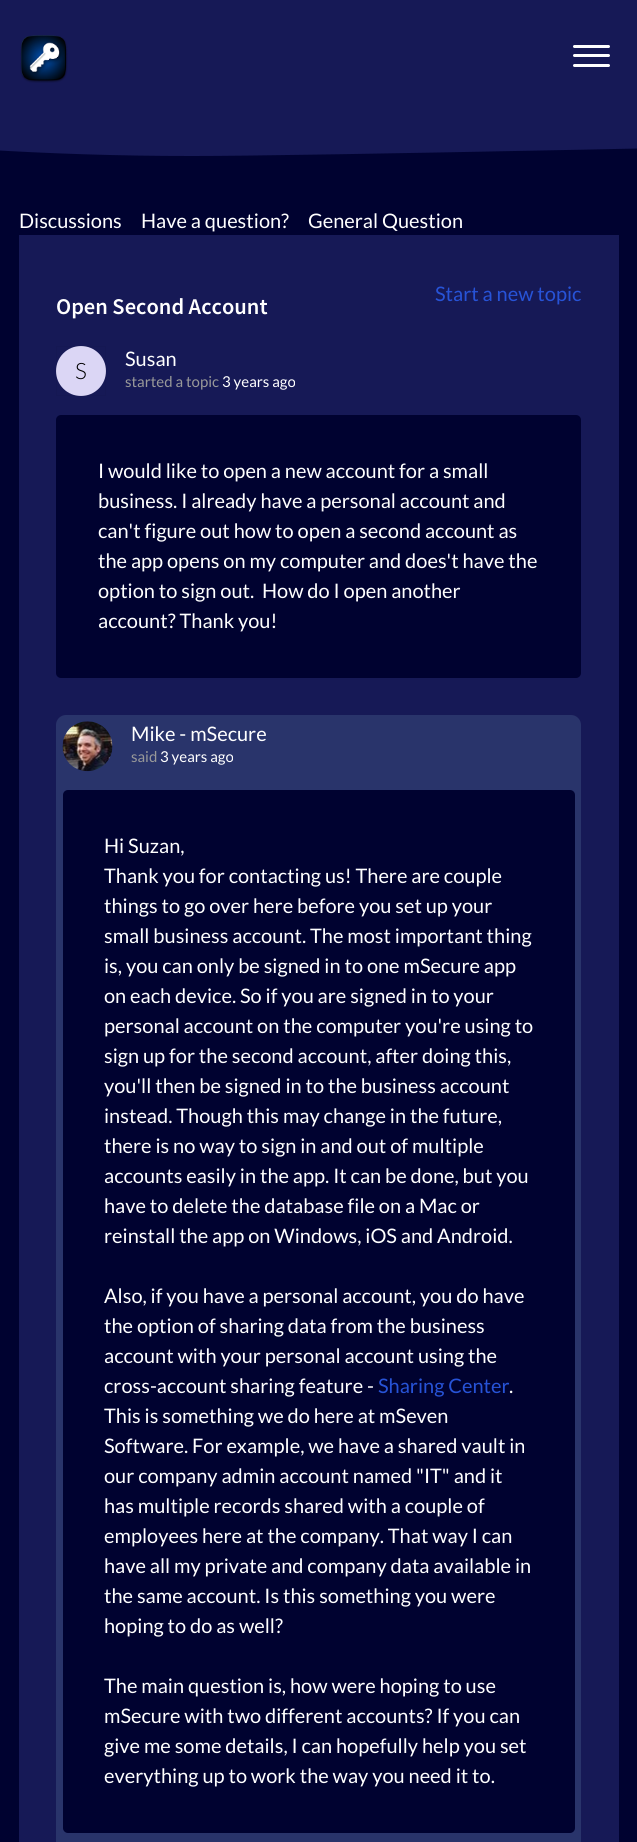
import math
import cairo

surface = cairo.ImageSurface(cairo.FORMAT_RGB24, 637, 1842)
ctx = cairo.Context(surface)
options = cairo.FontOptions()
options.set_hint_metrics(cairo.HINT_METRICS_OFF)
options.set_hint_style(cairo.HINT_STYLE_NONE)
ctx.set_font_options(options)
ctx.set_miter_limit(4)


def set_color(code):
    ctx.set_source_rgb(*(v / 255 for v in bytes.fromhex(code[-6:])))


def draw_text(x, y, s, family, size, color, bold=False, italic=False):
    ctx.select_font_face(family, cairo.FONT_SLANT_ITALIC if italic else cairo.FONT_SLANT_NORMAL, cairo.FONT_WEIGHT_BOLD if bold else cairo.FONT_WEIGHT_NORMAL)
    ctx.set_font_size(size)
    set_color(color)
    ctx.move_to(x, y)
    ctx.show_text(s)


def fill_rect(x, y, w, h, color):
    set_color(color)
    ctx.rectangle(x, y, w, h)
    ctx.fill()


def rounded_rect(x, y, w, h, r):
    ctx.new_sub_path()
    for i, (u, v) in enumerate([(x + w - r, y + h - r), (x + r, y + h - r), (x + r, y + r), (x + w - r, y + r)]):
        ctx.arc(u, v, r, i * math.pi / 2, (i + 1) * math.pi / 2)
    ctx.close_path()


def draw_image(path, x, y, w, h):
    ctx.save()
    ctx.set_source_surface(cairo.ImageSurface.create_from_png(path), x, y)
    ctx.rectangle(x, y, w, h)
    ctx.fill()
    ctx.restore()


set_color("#000230")
ctx.paint()
fill_rect(0, 0, 637, 116, "#161956")
draw_image("assets/img1.png", 20, 35, 48, 48)
set_color("#ffffff")
rounded_rect(573, 54, 37, 3, 1.5)
ctx.fill()
rounded_rect(573, 45, 37, 3, 1.5)
ctx.fill()
rounded_rect(573, 64, 37, 3, 1.5)
ctx.fill()
set_color("#161956")
ctx.new_path()
ctx.move_to(192, 156)
ctx.curve_to(416, 156, 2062, 116, 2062, 116)
ctx.line_to(-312, 116)
ctx.curve_to(-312, 116, -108, 156, 192, 156)
ctx.close_path()
ctx.fill()
draw_text(19, 228, "Discussions", "Lato", 20, "#ffffff")
draw_text(141, 228, "Have a question?", "Lato", 20, "#ffffff")
draw_text(308, 228, "General Question", "Lato", 20, "#ffffff")
fill_rect(19, 235, 600, 1607, "#161956")
draw_text(435, 301, "Start a new topic", "Lato", 20, "#2753d7")
draw_text(56, 314, "Open Second Account", "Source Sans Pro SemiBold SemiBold", 22.5, "#ffffff")
set_color("#dbd6f5")
ctx.new_path()
ctx.arc(81, 371, 25, 0, 2 * math.pi)
ctx.fill()
ctx.rectangle(56.5, 346.5, 49, 49)
ctx.set_source_rgba(0, 0, 0, 0.04)
ctx.set_line_width(1)
ctx.stroke()
draw_text(75, 379, "S", "Lato Light", 22.5, "#000000")
draw_text(125, 366, "Susan", "Lato", 20, "#ffffff")
draw_text(125, 387, "started a topic", "Lato", 15, "#999999")
draw_text(222, 387, "3 years ago", "Lato", 15, "#ffffff")
set_color("#000230")
rounded_rect(56, 415, 525, 263, 5)
ctx.fill()
draw_text(98, 478, "I would like to open a new account for a small", "Lato", 20, "#ffffff")
draw_text(98, 508, "business. I already have a personal account and", "Lato", 20, "#ffffff")
draw_text(98, 538, "can't figure out how to open a second account as", "Lato", 20, "#ffffff")
draw_text(98, 568, "the app opens on my computer and does't have the", "Lato", 20, "#ffffff")
draw_text(98, 598, "option to sign out.  How do I open another", "Lato", 20, "#ffffff")
draw_text(98, 628, "account? Thank you!", "Lato", 20, "#ffffff")
set_color("#29346b")
ctx.new_path()
ctx.move_to(66, 715)
ctx.line_to(571, 715)
ctx.curve_to(576.5, 715, 581, 719.5, 581, 725)
ctx.line_to(581, 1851)
ctx.line_to(56, 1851)
ctx.line_to(56, 725)
ctx.curve_to(56, 719.5, 60.5, 715, 66, 715)
ctx.close_path()
ctx.fill()
draw_image("assets/img2.png", 62, 721, 51, 51)
draw_text(131, 741, "Mike - mSecure", "Lato", 20, "#ffffff")
draw_text(131, 762, "said", "Lato", 15, "#999999")
draw_text(160, 762, "3 years ago", "Lato", 15, "#ffffff")
set_color("#000230")
rounded_rect(63, 790, 512, 1043, 5)
ctx.fill()
draw_text(104, 853, "Hi Suzan,", "Lato", 20, "#ffffff")
draw_text(104, 883, "Thank you for contacting us! There are couple", "Lato", 20, "#ffffff")
draw_text(104, 913, "things to go over here before you set up your", "Lato", 20, "#ffffff")
draw_text(104, 943, "small business account. The most important thing", "Lato", 20, "#ffffff")
draw_text(104, 973, "is, you can only be signed in to one mSecure app", "Lato", 20, "#ffffff")
draw_text(104, 1003, "on each device. So if you are signed in to your", "Lato", 20, "#ffffff")
draw_text(104, 1033, "personal account on the computer you're using to", "Lato", 20, "#ffffff")
draw_text(104, 1063, "sign up for the second account, after doing this,", "Lato", 20, "#ffffff")
draw_text(104, 1093, "you'll then be signed in to the business account", "Lato", 20, "#ffffff")
draw_text(104, 1123, "instead. Though this may change in the future,", "Lato", 20, "#ffffff")
draw_text(104, 1153, "there is no way to sign in and out of multiple", "Lato", 20, "#ffffff")
draw_text(104, 1183, "accounts easily in the app. It can be done, but you", "Lato", 20, "#ffffff")
draw_text(104, 1213, "have to delete the database file on a Mac or", "Lato", 20, "#ffffff")
draw_text(104, 1243, "reinstall the app on Windows, iOS and Android.", "Lato", 20, "#ffffff")
draw_text(104, 1303, "Also, if you have a personal account, you do have", "Lato", 20, "#ffffff")
draw_text(104, 1333, "the option of sharing data from the business", "Lato", 20, "#ffffff")
draw_text(104, 1363, "account with your personal account using the", "Lato", 20, "#ffffff")
draw_text(104, 1393, "cross-account sharing feature -", "Lato", 20, "#ffffff")
draw_text(378, 1393, "Sharing Center", "Lato", 20, "#2753d7")
draw_text(509, 1393, ".", "Lato", 20, "#ffffff")
draw_text(104, 1423, "This is something we do here at mSeven", "Lato", 20, "#ffffff")
draw_text(104, 1453, "Software. For example, we have a shared vault in", "Lato", 20, "#ffffff")
draw_text(104, 1483, "our company admin account named \"IT\" and it", "Lato", 20, "#ffffff")
draw_text(104, 1513, "has multiple records shared with a couple of", "Lato", 20, "#ffffff")
draw_text(104, 1543, "employees here at the company. That way I can", "Lato", 20, "#ffffff")
draw_text(104, 1573, "have all my private and company data available in", "Lato", 20, "#ffffff")
draw_text(104, 1603, "the same account. Is this something you were", "Lato", 20, "#ffffff")
draw_text(104, 1633, "hoping to do as well?", "Lato", 20, "#ffffff")
draw_text(104, 1693, "The main question is, how were hoping to use", "Lato", 20, "#ffffff")
draw_text(104, 1723, "mSecure with two different accounts? If you can", "Lato", 20, "#ffffff")
draw_text(104, 1753, "give me some details, I can hopefully help you set", "Lato", 20, "#ffffff")
draw_text(104, 1783, "everything up to work the way you need it to.", "Lato", 20, "#ffffff")
surface.write_to_png("output.png")
